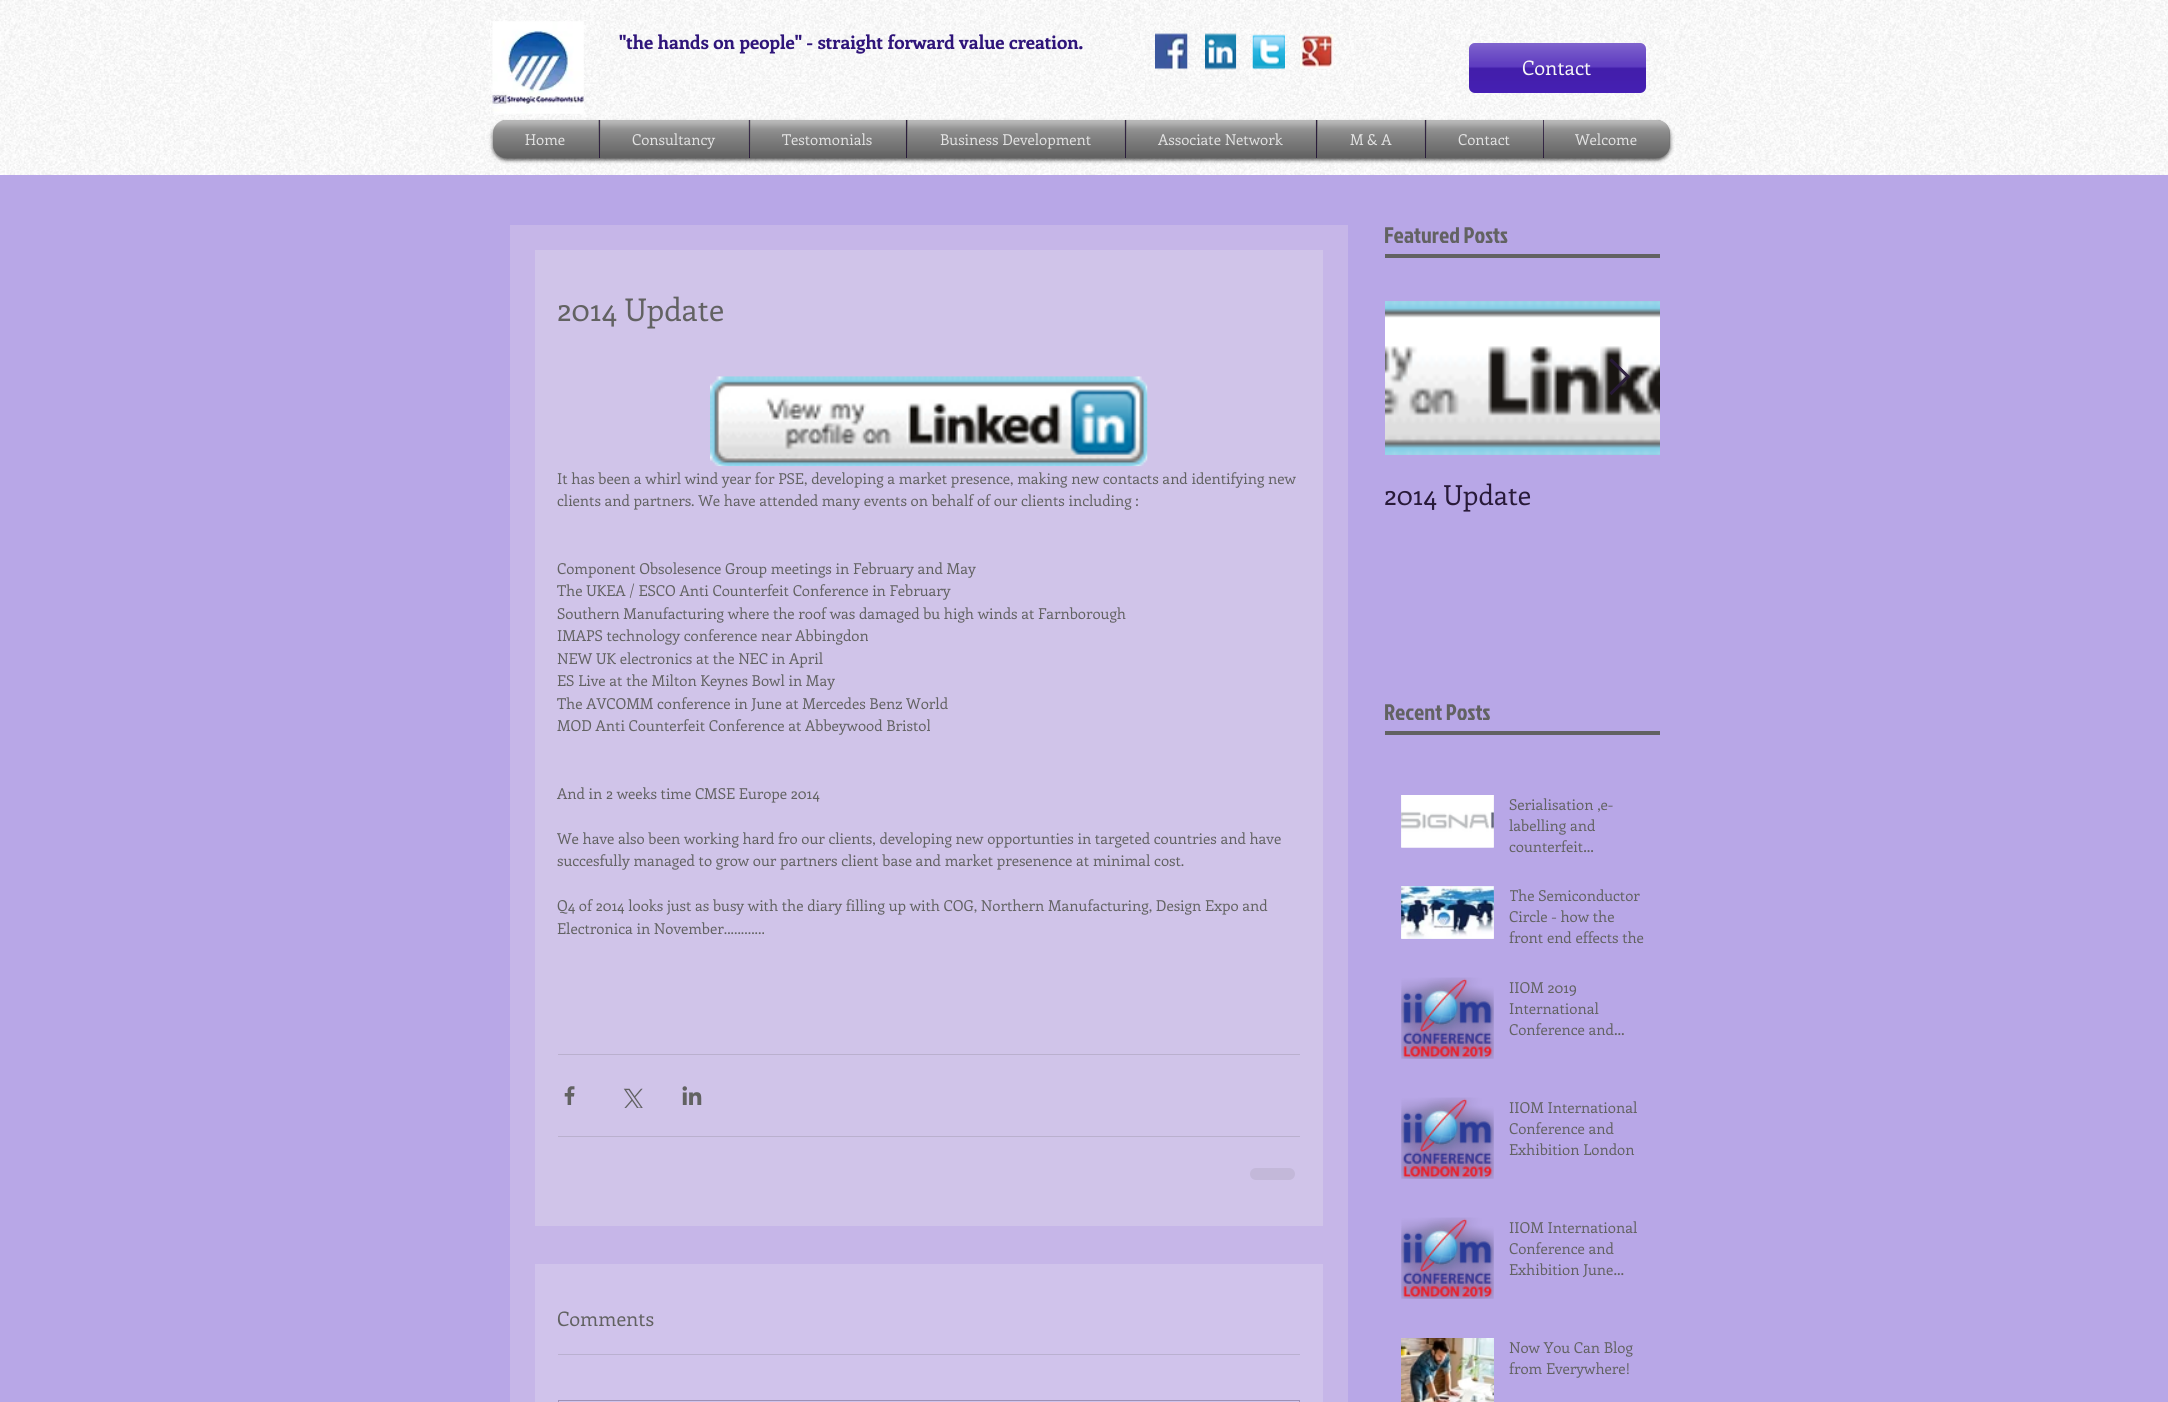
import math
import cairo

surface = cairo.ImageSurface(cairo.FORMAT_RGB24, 2168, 1402)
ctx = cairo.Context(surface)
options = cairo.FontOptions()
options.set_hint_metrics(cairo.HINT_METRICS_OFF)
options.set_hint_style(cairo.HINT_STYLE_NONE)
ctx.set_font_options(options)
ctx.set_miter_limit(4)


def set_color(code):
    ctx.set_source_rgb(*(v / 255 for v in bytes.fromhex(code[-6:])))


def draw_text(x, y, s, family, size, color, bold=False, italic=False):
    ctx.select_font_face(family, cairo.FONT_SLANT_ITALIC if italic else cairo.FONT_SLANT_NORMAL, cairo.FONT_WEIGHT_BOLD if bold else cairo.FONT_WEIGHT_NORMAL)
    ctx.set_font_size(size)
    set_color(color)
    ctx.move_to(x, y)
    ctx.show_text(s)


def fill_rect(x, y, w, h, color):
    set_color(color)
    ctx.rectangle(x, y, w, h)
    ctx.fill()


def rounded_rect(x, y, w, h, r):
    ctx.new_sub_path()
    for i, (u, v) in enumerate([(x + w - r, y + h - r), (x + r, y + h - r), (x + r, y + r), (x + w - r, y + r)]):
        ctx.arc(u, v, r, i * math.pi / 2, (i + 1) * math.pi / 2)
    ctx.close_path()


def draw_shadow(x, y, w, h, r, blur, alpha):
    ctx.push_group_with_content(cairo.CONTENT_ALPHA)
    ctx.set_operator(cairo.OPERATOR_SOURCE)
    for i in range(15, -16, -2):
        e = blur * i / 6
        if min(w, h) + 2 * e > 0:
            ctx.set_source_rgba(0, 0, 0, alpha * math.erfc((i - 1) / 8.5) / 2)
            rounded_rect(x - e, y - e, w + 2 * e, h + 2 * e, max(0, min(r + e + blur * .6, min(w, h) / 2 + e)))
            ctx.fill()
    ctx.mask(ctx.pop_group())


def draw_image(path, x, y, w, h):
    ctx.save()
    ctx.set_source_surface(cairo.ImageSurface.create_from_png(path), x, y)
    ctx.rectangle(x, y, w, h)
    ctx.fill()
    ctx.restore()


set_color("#b8a7e7")
ctx.paint()
fill_rect(0, 0, 2168, 175, "#ffffff")
draw_image("assets/img1.png", 0, 0, 2168, 175)
draw_image("assets/img2.png", 492, 21, 92, 93)
draw_text(619, 49, "\"the hands on people\" - straight forward value creation.", "Enriqueta", 18.75, "#2f157a", bold=True)
fill_rect(1155, 34, 33, 35, "#f6f6f6")
draw_image("assets/img3.png", 1155, 33, 33, 37)
draw_image("assets/img4.png", 1205, 33, 32, 37)
draw_image("assets/img5.png", 1252, 34, 33, 36)
fill_rect(1300, 34, 34, 35, "#f6f6f6")
draw_image("assets/img6.png", 1300, 34, 34, 35)
set_color("#4720b7")
rounded_rect(1469, 43, 177, 50, 6)
ctx.fill()
draw_image("assets/img7.png", 1469, 43, 177, 49)
draw_text(1522, 75, "Contact", "Enriqueta", 20, "#f6f6f6")
set_color("#000000")
draw_shadow(493, 123, 1177, 37, 13, 2, 0.7)
draw_image("assets/img8.png", 492, 120, 1178, 37)
draw_image("assets/img9.png", 493, 120, 1177, 37)
set_color("#626262")
ctx.new_path()
ctx.move_to(506, 120)
ctx.line_to(599, 120)
ctx.line_to(599, 158)
ctx.line_to(506, 158)
ctx.curve_to(499, 158, 493, 152, 493, 145)
ctx.line_to(493, 133)
ctx.curve_to(493, 126, 499, 120, 506, 120)
ctx.close_path()
ctx.fill()
draw_text(525, 145, "Home", "Enriqueta", 15, "#f6f6f6")
draw_image("assets/img10.png", 493, 120, 106, 37)
draw_image("assets/img11.png", 493, 120, 106, 37)
fill_rect(600, 120, 149, 38, "#626262")
fill_rect(599, 120, 1, 38, "#281a39")
draw_text(632, 145, "Consultancy", "Enriqueta", 15, "#f6f6f6")
draw_image("assets/img12.png", 599, 120, 150, 38)
draw_image("assets/img13.png", 600, 120, 149, 38)
fill_rect(750, 120, 156, 38, "#626262")
fill_rect(749, 120, 1, 38, "#281a39")
draw_text(782, 145, "Testomonials", "Enriqueta", 15, "#f6f6f6")
draw_image("assets/img14.png", 749, 120, 157, 37)
draw_image("assets/img15.png", 750, 120, 156, 37)
fill_rect(907, 120, 218, 38, "#626262")
fill_rect(906, 120, 1, 38, "#281a39")
draw_text(940, 145, "Business Development", "Enriqueta", 15, "#f6f6f6")
draw_image("assets/img16.png", 906, 120, 219, 38)
draw_image("assets/img17.png", 907, 120, 218, 38)
fill_rect(1126, 120, 190, 38, "#626262")
fill_rect(1125, 120, 1, 38, "#281a39")
draw_text(1158, 145, "Associate Network", "Enriqueta", 15, "#f6f6f6")
draw_image("assets/img18.png", 1125, 120, 191, 38)
draw_image("assets/img19.png", 1126, 120, 190, 38)
fill_rect(1317, 120, 108, 38, "#626262")
fill_rect(1316, 120, 1, 38, "#281a39")
draw_text(1350, 145, "M & A", "Enriqueta", 15, "#f6f6f6")
draw_image("assets/img20.png", 1316, 120, 109, 38)
draw_image("assets/img21.png", 1317, 120, 108, 38)
fill_rect(1426, 120, 117, 38, "#626262")
fill_rect(1425, 120, 1, 38, "#281a39")
draw_text(1458, 145, "Contact", "Enriqueta", 15, "#f6f6f6")
draw_image("assets/img22.png", 1425, 120, 118, 38)
draw_image("assets/img23.png", 1426, 120, 117, 38)
set_color("#626262")
ctx.new_path()
ctx.move_to(1543, 120)
ctx.line_to(1657, 120)
ctx.curve_to(1664, 120, 1670, 126, 1670, 133)
ctx.line_to(1670, 145)
ctx.curve_to(1670, 152, 1664, 158, 1657, 158)
ctx.line_to(1543, 158)
ctx.close_path()
ctx.fill()
fill_rect(1543, 120, 1, 38, "#281a39")
draw_text(1575, 145, "Welcome", "Enriqueta", 15, "#f6f6f6")
draw_image("assets/img24.png", 1543, 120, 127, 37)
draw_image("assets/img25.png", 1544, 120, 126, 37)
fill_rect(510, 225, 838, 1177, "#c6b6e8")
fill_rect(535, 250, 788, 976, "#d0c4e9")
draw_text(557, 321, "2014 Update", "Enriqueta", 31.25, "#626262")
draw_image("assets/img26.png", 710, 376, 438, 91)
draw_text(557, 484, "It has been a whirl wind year for PSE, developing a market presence, making new contacts and identifying new", "Enriqueta", 15, "#626262")
draw_text(557, 506, "clients and partners. We have attended many events on behalf of our clients including :", "Enriqueta", 15, "#626262")
draw_text(557, 574, "Component Obsolesence Group meetings in February and May", "Enriqueta", 15, "#626262")
draw_text(557, 596, "The UKEA / ESCO Anti Counterfeit Conference in February", "Enriqueta", 15, "#626262")
draw_text(557, 619, "Southern Manufacturing where the roof was damaged bu high winds at Farnborough", "Enriqueta", 15, "#626262")
draw_text(557, 641, "IMAPS technology conference near Abbingdon", "Enriqueta", 15, "#626262")
draw_text(557, 664, "NEW UK electronics at the NEC in April", "Enriqueta", 15, "#626262")
draw_text(557, 686, "ES Live at the Milton Keynes Bowl in May", "Enriqueta", 15, "#626262")
draw_text(557, 709, "The AVCOMM conference in June at Mercedes Benz World", "Enriqueta", 15, "#626262")
draw_text(557, 731, "MOD Anti Counterfeit Conference at Abbeywood Bristol", "Enriqueta", 15, "#626262")
draw_text(557, 799, "And in 2 weeks time CMSE Europe 2014", "Enriqueta", 15, "#626262")
draw_text(557, 844, "We have also been working hard fro our clients, developing new opportunties in targeted countries and have", "Enriqueta", 15, "#626262")
draw_text(557, 866, "succesfully managed to grow our partners client base and market presenence at minimal cost.", "Enriqueta", 15, "#626262")
draw_text(557, 911, "Q4 of 2014 looks just as busy with the diary filling up with COG, Northern Manufacturing, Design Expo and", "Enriqueta", 15, "#626262")
draw_text(557, 934, "Electronica in November............", "Enriqueta", 15, "#626262")
fill_rect(558, 1054, 742, 1, "#bab0ce")
draw_image("assets/img27.png", 564, 1086, 11, 19)
draw_image("assets/img28.png", 623, 1088, 20, 20)
draw_image("assets/img29.png", 682, 1086, 20, 19)
fill_rect(558, 1136, 742, 1, "#bab0ce")
set_color("#c3b8d9")
rounded_rect(1250, 1168, 45, 12, 6)
ctx.fill()
fill_rect(535, 1264, 788, 138, "#d0c3eb")
draw_text(557, 1326, "Comments", "Enriqueta", 20, "#626262")
fill_rect(558, 1354, 742, 1, "#bab0d0")
ctx.rectangle(558.5, 1400.5, 741, 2)
set_color("#9e90b6")
ctx.set_line_width(1)
ctx.stroke()
draw_text(1384, 243, "Featured Posts", "Jockey One", 22.5, "#626262")
fill_rect(1385, 254, 275, 4, "#626262")
draw_image("assets/img30.png", 1385, 301, 275, 154)
draw_image("assets/img31.png", 1385, 301, 275, 154)
ctx.set_source_rgba(0.157, 0.102, 0.224, 0.9)
ctx.new_path()
ctx.move_to(1610, 360.5)
ctx.line_to(1611.5, 359)
ctx.line_to(1629.5, 376.5)
ctx.line_to(1611.5, 394.5)
ctx.line_to(1610, 393)
ctx.line_to(1626.5, 376.5)
ctx.close_path()
ctx.fill_preserve()
ctx.stroke()
draw_text(1384, 505, "2014 Update", "Enriqueta", 27.5, "#281a39")
draw_text(1384, 720, "Recent Posts", "Jockey One", 22.5, "#626262")
fill_rect(1385, 731, 275, 4, "#626262")
draw_image("assets/img32.png", 1401, 795, 93, 53)
draw_image("assets/img33.png", 1401, 795, 93, 53)
draw_text(1509, 810, "Serialisation ,e-", "Enriqueta", 15, "#626262")
draw_text(1509, 831, "labelling and", "Enriqueta", 15, "#626262")
draw_text(1509, 852, "counterfeit…", "Enriqueta", 15, "#626262")
draw_image("assets/img34.png", 1401, 886, 93, 53)
draw_image("assets/img35.png", 1401, 886, 93, 53)
ctx.save()
ctx.rectangle(1510, 885, 135, 64)
ctx.clip()
draw_text(1509, 901, "The Semiconductor", "Enriqueta", 15, "#626262")
ctx.restore()
draw_text(1509, 922, "Circle - how the", "Enriqueta", 15, "#626262")
draw_text(1509, 943, "front end effects the", "Enriqueta", 15, "#626262")
draw_image("assets/img36.png", 1401, 977, 93, 82)
draw_image("assets/img37.png", 1402, 978, 91, 80)
draw_text(1509, 993, "IIOM 2019", "Enriqueta", 15, "#626262")
draw_text(1509, 1014, "International", "Enriqueta", 15, "#626262")
draw_text(1509, 1035, "Conference and…", "Enriqueta", 15, "#626262")
draw_image("assets/img36.png", 1401, 1097, 93, 82)
draw_image("assets/img37.png", 1402, 1098, 91, 80)
draw_text(1509, 1113, "IIOM International", "Enriqueta", 15, "#626262")
draw_text(1509, 1134, "Conference and", "Enriqueta", 15, "#626262")
draw_text(1509, 1155, "Exhibition London", "Enriqueta", 15, "#626262")
draw_image("assets/img36.png", 1401, 1217, 93, 82)
draw_image("assets/img37.png", 1402, 1218, 91, 80)
draw_text(1509, 1233, "IIOM International", "Enriqueta", 15, "#626262")
draw_text(1509, 1254, "Conference and", "Enriqueta", 15, "#626262")
draw_text(1509, 1275, "Exhibition June…", "Enriqueta", 15, "#626262")
draw_image("assets/img38.png", 1401, 1338, 93, 64)
draw_text(1509, 1353, "Now You Can Blog", "Enriqueta", 15, "#626262")
draw_text(1509, 1374, "from Everywhere!", "Enriqueta", 15, "#626262")
surface.write_to_png("output.png")
